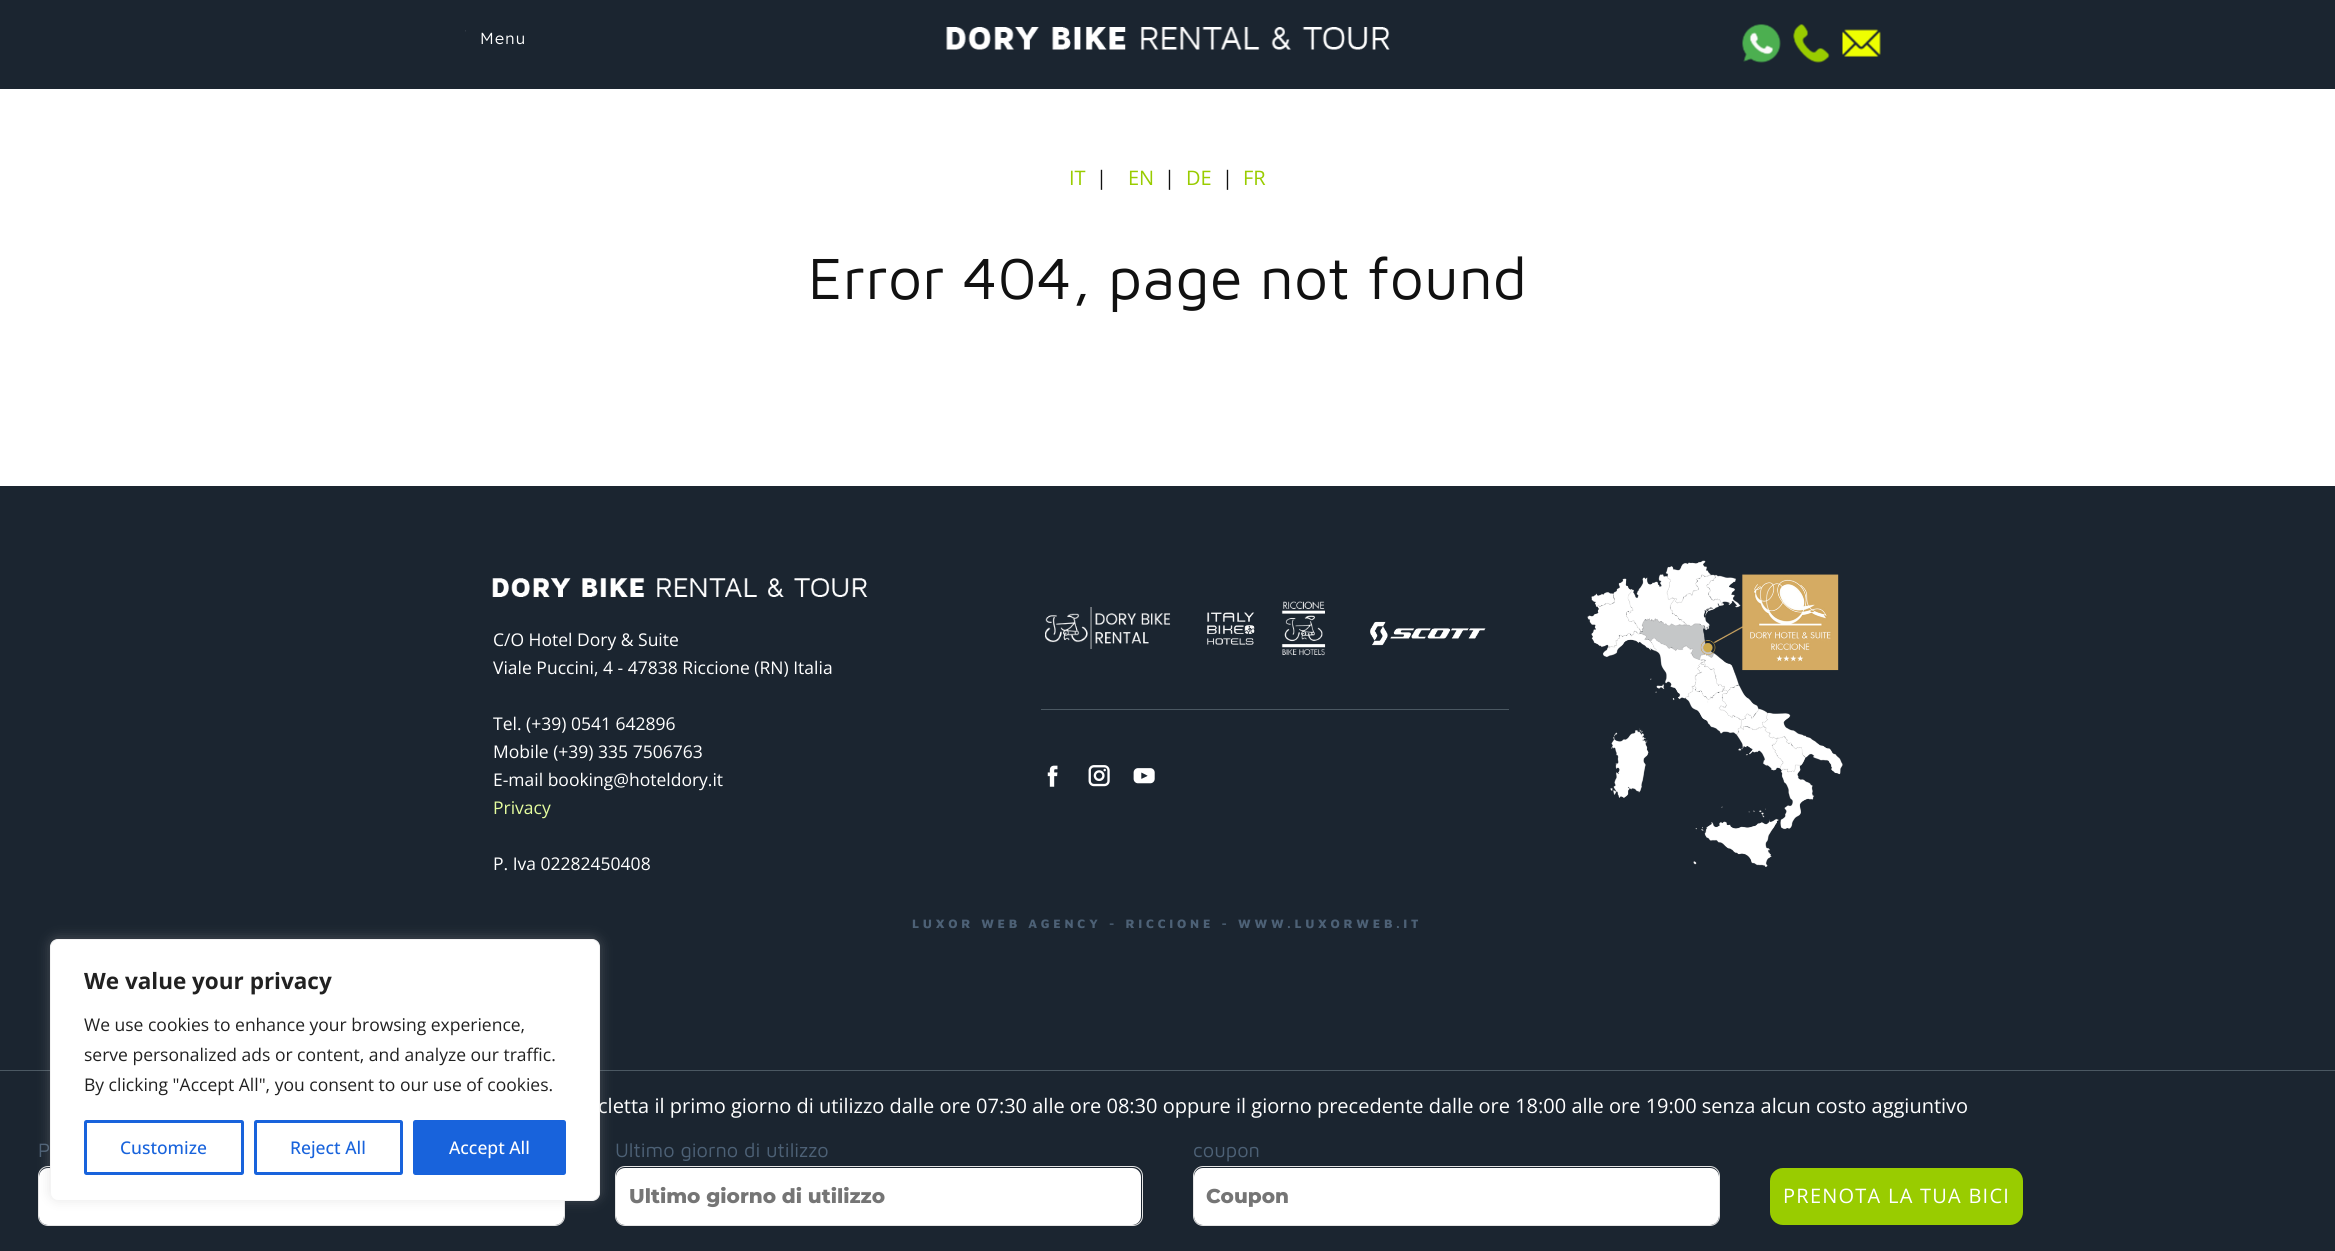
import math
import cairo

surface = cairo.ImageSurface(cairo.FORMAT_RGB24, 2335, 1251)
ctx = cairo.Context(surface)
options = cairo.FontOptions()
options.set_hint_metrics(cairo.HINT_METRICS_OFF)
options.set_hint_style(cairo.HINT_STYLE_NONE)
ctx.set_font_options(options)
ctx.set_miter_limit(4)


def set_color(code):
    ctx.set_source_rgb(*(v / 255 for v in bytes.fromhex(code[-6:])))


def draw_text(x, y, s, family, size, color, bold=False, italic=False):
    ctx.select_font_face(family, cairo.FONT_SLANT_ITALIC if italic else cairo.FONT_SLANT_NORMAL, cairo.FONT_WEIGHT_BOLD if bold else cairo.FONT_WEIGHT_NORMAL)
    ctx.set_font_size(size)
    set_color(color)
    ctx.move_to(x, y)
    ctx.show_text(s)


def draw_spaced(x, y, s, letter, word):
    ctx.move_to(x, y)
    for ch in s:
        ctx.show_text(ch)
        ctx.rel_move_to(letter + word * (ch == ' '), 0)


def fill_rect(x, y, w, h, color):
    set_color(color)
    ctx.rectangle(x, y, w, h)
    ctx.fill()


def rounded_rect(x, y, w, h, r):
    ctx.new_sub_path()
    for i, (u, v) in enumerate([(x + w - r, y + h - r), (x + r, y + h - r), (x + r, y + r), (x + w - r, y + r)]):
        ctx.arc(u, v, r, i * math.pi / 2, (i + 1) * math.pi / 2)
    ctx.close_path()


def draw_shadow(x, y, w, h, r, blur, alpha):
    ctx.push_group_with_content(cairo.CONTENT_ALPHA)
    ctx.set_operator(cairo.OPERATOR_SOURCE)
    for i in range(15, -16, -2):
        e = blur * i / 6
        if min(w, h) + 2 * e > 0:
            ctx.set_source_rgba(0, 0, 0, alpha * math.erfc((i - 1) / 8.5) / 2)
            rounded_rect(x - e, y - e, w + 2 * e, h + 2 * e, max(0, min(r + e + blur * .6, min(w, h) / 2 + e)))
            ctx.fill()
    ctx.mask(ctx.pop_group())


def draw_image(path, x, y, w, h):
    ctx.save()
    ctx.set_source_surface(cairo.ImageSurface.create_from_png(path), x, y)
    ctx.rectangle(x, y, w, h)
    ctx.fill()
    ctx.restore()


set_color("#ffffff")
ctx.paint()
fill_rect(0, 0, 2335, 89, "#1b2530")
fill_rect(465, 30, 1, 1, "#303943")
fill_rect(465, 31, 1, 1, "#262f3a")
ctx.select_font_face("Lexend Light")
ctx.set_font_size(16)
set_color("#ffffff")
draw_spaced(480, 44, "Menu", 1.25, 0)
draw_image("assets/img1.png", 946, 27, 444, 23)
draw_image("assets/img2.png", 1742, 24, 39, 39)
draw_image("assets/img3.png", 1793, 24, 37, 39)
draw_image("assets/img4.png", 1842, 29, 39, 28)
draw_text(1069, 185, "IT", "Open Sans", 20, "#99cc00")
draw_text(1096, 185, "|", "Open Sans", 20, "#111111")
draw_text(1128, 185, "EN", "Open Sans", 20, "#99cc00")
draw_text(1164, 185, "|", "Open Sans", 20, "#111111")
draw_text(1186, 185, "DE", "Open Sans", 20, "#99cc00")
draw_text(1222, 185, "|", "Open Sans", 20, "#111111")
draw_text(1243, 185, "FR", "Open Sans", 20, "#99cc00")
draw_text(808, 299, "Error 404, page not found", "Maven Pro", 60, "#111111")
fill_rect(0, 486, 2335, 765, "#1b2530")
draw_image("assets/img5.png", 492, 578, 376, 19)
draw_text(493, 646, "C/O Hotel Dory & Suite", "Open Sans", 17.5, "#ffffff")
draw_text(493, 674, "Viale Puccini, 4 - 47838 Riccione (RN) Italia", "Open Sans", 17.5, "#ffffff")
draw_text(493, 730, "Tel. (+39) 0541 642896", "Open Sans", 17.5, "#ffffff")
draw_text(493, 758, "Mobile (+39) 335 7506763", "Open Sans", 17.5, "#ffffff")
draw_text(493, 786, "E-mail booking@hoteldory.it", "Open Sans", 17.5, "#ffffff")
draw_text(493, 814, "Privacy", "Open Sans", 17.5, "#e5fd9e")
draw_text(493, 870, "P. Iva 02282450408", "Open Sans", 17.5, "#ffffff")
draw_image("assets/img6.png", 1045, 607, 126, 42)
draw_image("assets/img7.png", 1207, 612, 48, 33)
draw_image("assets/img8.png", 1281, 601, 45, 55)
draw_image("assets/img9.png", 1370, 621, 116, 25)
fill_rect(1041, 709, 468, 1, "#4b5862")
draw_image("assets/img10.png", 1047, 765, 11, 22)
draw_image("assets/img11.png", 1088, 765, 22, 22)
draw_image("assets/img12.png", 1133, 768, 22, 16)
draw_image("assets/img13.png", 1587, 560, 256, 307)
ctx.select_font_face("Maven Pro ExtraBold")
ctx.set_font_size(12.5)
set_color("#4d6176")
draw_spaced(912, 928, "LUXOR WEB AGENCY - RICCIONE - WWW.LUXORWEB.IT", 3.75, 0)
fill_rect(0, 1070, 2335, 1, "#4b5862")
draw_text(598, 1113, "cletta il primo giorno di utilizzo dalle ore 07:30 alle ore 08:30 oppure il giorno precedente dalle ore 18:00 alle ore 19:00 senza alcun costo aggiuntivo", "Open Sans", 20, "#ffffff")
draw_text(38, 1157, "P", "Maven Pro", 20, "#4d6176")
set_color("#ffffff")
rounded_rect(39, 1168, 525, 57, 9)
ctx.fill()
rounded_rect(38.5, 1166.5, 526, 59, 9.5)
set_color("#e5e5e5")
ctx.set_line_width(1)
ctx.stroke()
draw_text(615, 1157, "Ultimo giorno di utilizzo", "Maven Pro", 20, "#4d6176")
set_color("#ffffff")
rounded_rect(616, 1168, 525, 57, 9)
ctx.fill()
rounded_rect(615.5, 1166.5, 527, 59, 9.5)
set_color("#e5e5e5")
ctx.stroke()
draw_text(629, 1203, "Ultimo giorno di utilizzo", "Montserrat ExtraBold", 20, "#757575")
draw_text(1193, 1157, "coupon", "Maven Pro", 20, "#4d6176")
set_color("#ffffff")
rounded_rect(1194, 1168, 525, 57, 9)
ctx.fill()
rounded_rect(1193.5, 1166.5, 526, 59, 9.5)
set_color("#e5e5e5")
ctx.stroke()
draw_text(1206, 1203, "Coupon", "Montserrat ExtraBold", 20, "#757575")
set_color("#99cc00")
rounded_rect(1770, 1168, 253, 57, 13)
ctx.fill()
ctx.select_font_face("Open Sans")
set_color("#ffffff")
draw_spaced(1783, 1203, "PRENOTA LA TUA BICI", 1.25, 0)
set_color("#acabab")
draw_shadow(50, 938, 550, 262, 8, 6, 0.3)
set_color("#ffffff")
rounded_rect(50.5, 939.5, 549, 261, 7.5)
ctx.fill_preserve()
set_color("#f4f4f4")
ctx.stroke()
draw_text(84, 989, "We value your privacy", "Open Sans", 22.5, "#212121", bold=True)
draw_text(84, 1031, "We use cookies to enhance your browsing experience,", "Open Sans", 17.5, "#212121")
draw_text(84, 1061, "serve personalized ads or content, and analyze our traffic.", "Open Sans", 17.5, "#212121")
draw_text(84, 1091, "By clicking \"Accept All\", you consent to our use of cookies.", "Open Sans", 17.5, "#212121")
rounded_rect(85.5, 1121.5, 157, 52, 1)
set_color("#1863dc")
ctx.set_line_width(3)
ctx.stroke()
draw_text(120, 1154, "Customize", "Open Sans Medium", 17.5, "#1863dc")
rounded_rect(255.5, 1121.5, 146, 52, 1)
ctx.stroke()
draw_text(290, 1154, "Reject All", "Open Sans Medium", 17.5, "#1863dc")
rounded_rect(414.5, 1121.5, 150, 52, 1)
ctx.fill_preserve()
ctx.stroke()
draw_text(449, 1154, "Accept All", "Open Sans Medium", 17.5, "#ffffff")
surface.write_to_png("output.png")
